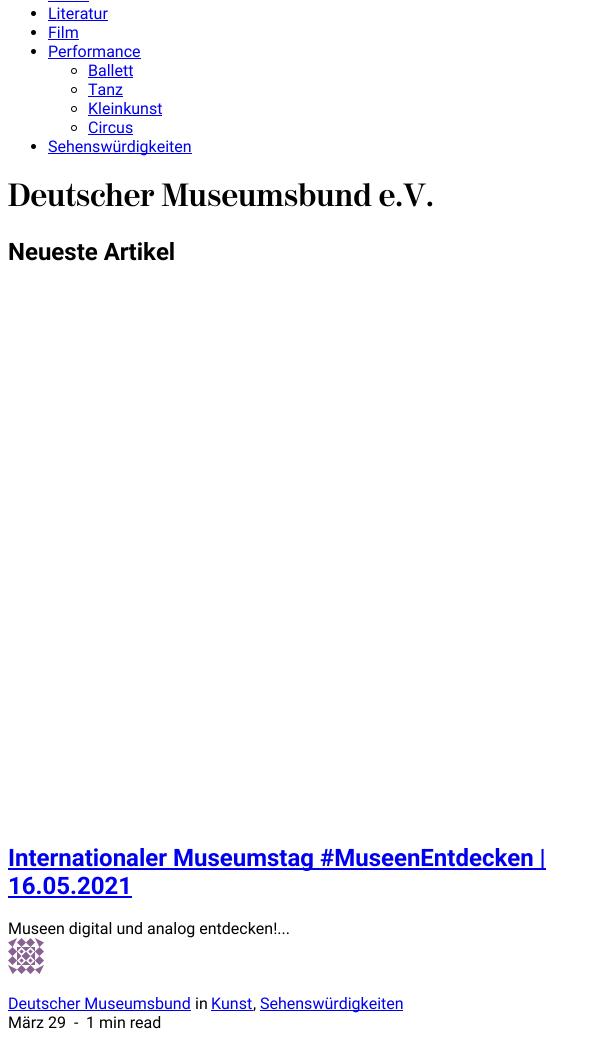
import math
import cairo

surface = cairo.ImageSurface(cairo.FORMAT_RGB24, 589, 1050)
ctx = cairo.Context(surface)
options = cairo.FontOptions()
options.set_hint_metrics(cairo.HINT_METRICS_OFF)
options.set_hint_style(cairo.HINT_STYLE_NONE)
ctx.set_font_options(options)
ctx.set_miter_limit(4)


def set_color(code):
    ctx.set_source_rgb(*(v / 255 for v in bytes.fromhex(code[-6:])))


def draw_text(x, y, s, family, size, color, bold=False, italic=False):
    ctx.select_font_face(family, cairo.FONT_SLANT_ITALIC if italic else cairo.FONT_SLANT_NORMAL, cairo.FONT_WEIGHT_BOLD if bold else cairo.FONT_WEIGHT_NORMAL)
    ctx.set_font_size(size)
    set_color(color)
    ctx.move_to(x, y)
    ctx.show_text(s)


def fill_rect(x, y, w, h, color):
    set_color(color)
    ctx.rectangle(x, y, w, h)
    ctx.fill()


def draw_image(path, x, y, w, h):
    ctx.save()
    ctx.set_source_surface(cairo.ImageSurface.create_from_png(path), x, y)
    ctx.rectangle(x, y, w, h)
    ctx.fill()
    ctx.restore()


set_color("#ffffff")
ctx.paint()
fill_rect(48, 1, 41, 1, "#0000ee")
set_color("#000000")
ctx.arc(33.5, 13.5, 2.5, 0, 2 * math.pi)
ctx.fill()
draw_text(48, 19, "Literatur", "Roboto", 16, "#0000ee")
fill_rect(48, 20, 60, 1, "#0000ee")
set_color("#000000")
ctx.new_path()
ctx.arc(33.5, 32.5, 2.5, 0, 2 * math.pi)
ctx.fill()
draw_text(48, 38, "Film", "Roboto", 16, "#0000ee")
fill_rect(48, 39, 31, 1, "#0000ee")
set_color("#000000")
ctx.new_path()
ctx.arc(33.5, 51.5, 2.5, 0, 2 * math.pi)
ctx.fill()
draw_text(48, 57, "Performance", "Roboto", 16, "#0000ee")
fill_rect(48, 58, 93, 1, "#0000ee")
ctx.new_path()
ctx.arc(74, 71, 2.5, 0, 2 * math.pi)
set_color("#000000")
ctx.set_line_width(1)
ctx.stroke()
draw_text(88, 76, "Ballett", "Roboto", 16, "#0000ee")
fill_rect(88, 77, 45, 1, "#0000ee")
ctx.new_path()
ctx.arc(74, 90, 2.5, 0, 2 * math.pi)
set_color("#000000")
ctx.stroke()
draw_text(88, 95, "Tanz", "Roboto", 16, "#0000ee")
fill_rect(88, 96, 35, 1, "#0000ee")
ctx.new_path()
ctx.arc(74, 109, 2.5, 0, 2 * math.pi)
set_color("#000000")
ctx.stroke()
draw_text(88, 114, "Kleinkunst", "Roboto", 16, "#0000ee")
fill_rect(88, 115, 74, 1, "#0000ee")
ctx.new_path()
ctx.arc(74, 128, 2.5, 0, 2 * math.pi)
set_color("#000000")
ctx.stroke()
draw_text(88, 133, "Circus", "Roboto", 16, "#0000ee")
fill_rect(88, 134, 45, 1, "#0000ee")
set_color("#000000")
ctx.new_path()
ctx.arc(33.5, 146.5, 2.5, 0, 2 * math.pi)
ctx.fill()
fill_rect(48, 153, 144, 1, "#0000ee")
draw_text(48, 152, "Sehenswürdigkeiten", "Roboto", 16, "#0000ee")
draw_text(8, 206, "Deutscher Museumsbund e.V.", "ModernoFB", 32, "#000000", bold=True)
draw_text(8, 260, "Neueste Artikel", "Roboto", 24, "#000000", bold=True)
fill_rect(8, 868, 538, 2, "#0000ee")
draw_text(8, 866, "Internationaler Museumstag #MuseenEntdecken |", "Roboto", 24, "#0000ee", bold=True)
draw_text(8, 894, "16.05.2021", "Roboto", 24, "#0000ee", bold=True)
fill_rect(8, 896, 124, 2, "#0000ee")
draw_text(8, 934, "Museen digital und analog entdecken!...", "Roboto", 16, "#000000")
draw_image("assets/img1.png", 8, 938, 36, 36)
draw_text(8, 1009, "Deutscher Museumsbund", "Roboto", 16, "#0000ee")
fill_rect(8, 1010, 183, 1, "#0000ee")
draw_text(195, 1009, "in", "Roboto", 16, "#000000")
draw_text(211, 1009, "Kunst", "Roboto", 16, "#0000ee")
fill_rect(211, 1010, 42, 1, "#0000ee")
draw_text(253, 1009, ",", "Roboto", 16, "#000000")
fill_rect(260, 1010, 143, 1, "#0000ee")
draw_text(260, 1009, "Sehenswürdigkeiten", "Roboto", 16, "#0000ee")
draw_text(8, 1028, "März 29", "Roboto", 16, "#000000")
draw_text(74, 1028, "-", "Roboto", 16, "#000000")
draw_text(86, 1028, "1 min read", "Roboto", 16, "#000000")
surface.write_to_png("output.png")
